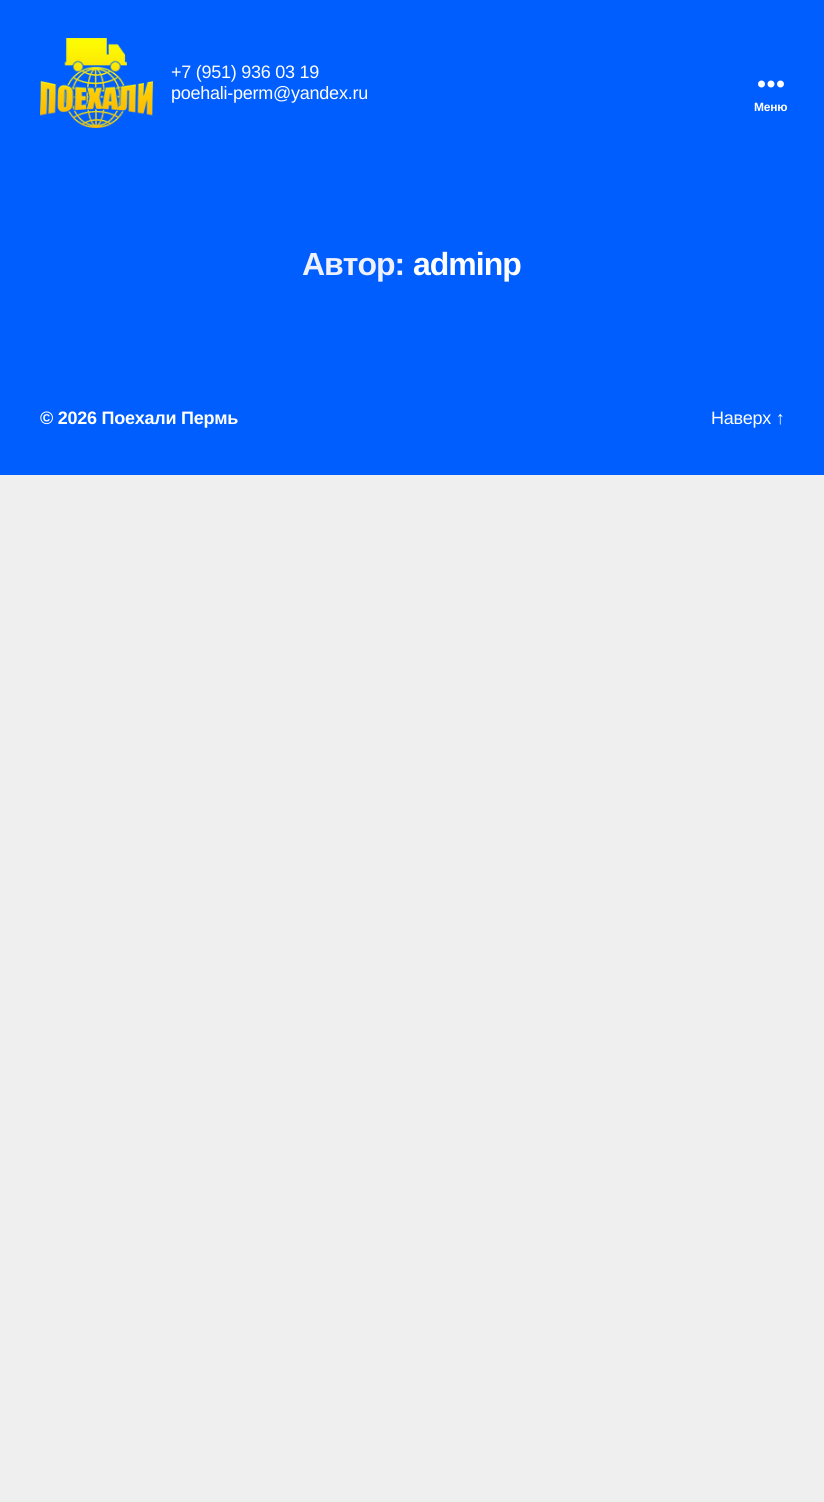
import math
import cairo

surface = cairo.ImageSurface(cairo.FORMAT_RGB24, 824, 1502)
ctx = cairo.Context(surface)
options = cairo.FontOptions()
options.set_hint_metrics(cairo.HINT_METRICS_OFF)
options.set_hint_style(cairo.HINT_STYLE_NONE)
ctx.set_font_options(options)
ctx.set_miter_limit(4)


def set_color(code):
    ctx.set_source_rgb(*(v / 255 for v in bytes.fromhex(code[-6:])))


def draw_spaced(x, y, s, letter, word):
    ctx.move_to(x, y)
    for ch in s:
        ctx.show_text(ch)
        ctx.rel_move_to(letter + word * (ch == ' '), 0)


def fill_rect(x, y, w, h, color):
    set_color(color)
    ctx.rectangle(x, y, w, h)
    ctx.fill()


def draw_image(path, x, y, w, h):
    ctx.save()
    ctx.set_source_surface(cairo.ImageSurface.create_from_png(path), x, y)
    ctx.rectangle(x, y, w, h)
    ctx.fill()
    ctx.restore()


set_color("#efefef")
ctx.paint()
fill_rect(0, 0, 824, 475, "#005eff")
draw_image("assets/img1.png", 40, 38, 113, 90)
ctx.select_font_face("Liberation Sans")
ctx.set_font_size(18)
set_color("#ffffff")
draw_spaced(171, 78, "+7 (951) 936 03 19", -0.25, 0)
draw_spaced(171, 99, "poehali-perm@yandex.ru", -0.25, 0)
draw_image("assets/img2.png", 758, 80, 26, 8)
ctx.select_font_face("Liberation Sans", cairo.FONT_SLANT_NORMAL, cairo.FONT_WEIGHT_BOLD)
ctx.set_font_size(12)
draw_spaced(754, 111, "Меню", -0.25, 0)
ctx.set_font_size(32)
set_color("#eef0fb")
draw_spaced(302, 275, "Автор:", -1, 0)
set_color("#ffffff")
draw_spaced(413, 275, "adminp", -1, 0)
ctx.set_font_size(18)
draw_spaced(40, 424, "© 2026 Поехали Пермь", -0.25, 0)
ctx.select_font_face("Liberation Sans")
draw_spaced(711, 424, "Наверх ↑", -0.25, 0)
surface.write_to_png("output.png")
